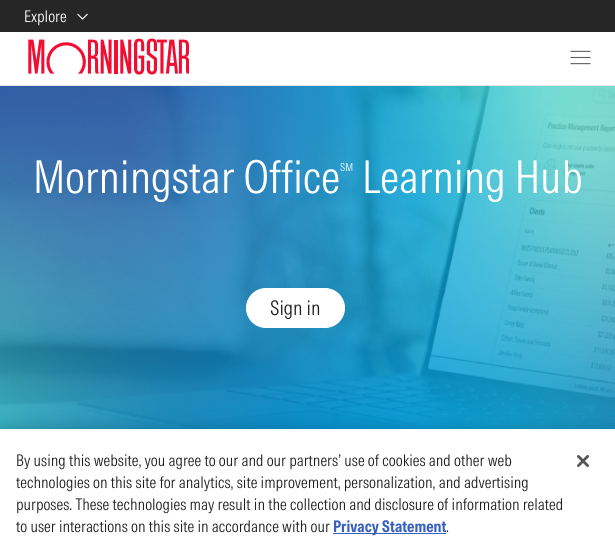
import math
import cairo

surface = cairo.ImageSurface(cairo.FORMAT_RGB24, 615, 547)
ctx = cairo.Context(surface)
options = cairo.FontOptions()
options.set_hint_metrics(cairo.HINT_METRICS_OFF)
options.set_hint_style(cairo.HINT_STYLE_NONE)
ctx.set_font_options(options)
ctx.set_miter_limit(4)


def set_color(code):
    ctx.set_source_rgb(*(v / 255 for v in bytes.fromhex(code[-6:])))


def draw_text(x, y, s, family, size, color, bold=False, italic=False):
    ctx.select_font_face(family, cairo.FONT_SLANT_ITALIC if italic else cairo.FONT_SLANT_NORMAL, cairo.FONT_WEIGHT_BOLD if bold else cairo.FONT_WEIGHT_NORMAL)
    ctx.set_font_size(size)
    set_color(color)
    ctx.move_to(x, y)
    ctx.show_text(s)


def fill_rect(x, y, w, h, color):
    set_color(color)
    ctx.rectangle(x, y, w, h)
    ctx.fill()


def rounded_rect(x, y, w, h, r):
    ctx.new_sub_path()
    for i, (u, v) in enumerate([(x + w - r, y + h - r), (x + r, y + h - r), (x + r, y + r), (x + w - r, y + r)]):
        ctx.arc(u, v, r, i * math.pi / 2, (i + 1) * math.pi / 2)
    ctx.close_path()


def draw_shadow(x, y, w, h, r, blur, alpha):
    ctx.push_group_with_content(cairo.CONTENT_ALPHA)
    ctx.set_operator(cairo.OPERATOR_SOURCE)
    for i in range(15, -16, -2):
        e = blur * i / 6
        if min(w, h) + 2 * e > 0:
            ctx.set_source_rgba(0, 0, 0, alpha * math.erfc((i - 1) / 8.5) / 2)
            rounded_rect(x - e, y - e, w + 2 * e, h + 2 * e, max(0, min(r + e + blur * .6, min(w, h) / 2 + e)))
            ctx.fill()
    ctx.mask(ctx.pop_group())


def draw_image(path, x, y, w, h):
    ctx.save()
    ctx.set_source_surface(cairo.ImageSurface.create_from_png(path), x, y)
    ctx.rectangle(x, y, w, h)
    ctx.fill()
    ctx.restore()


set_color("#ffffff")
ctx.paint()
fill_rect(0, 0, 615, 32, "#262626")
draw_text(24, 22, "Explore", "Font", 16, "#ffffff")
ctx.new_path()
ctx.move_to(77.5, 14)
ctx.line_to(82.5, 19)
ctx.line_to(87.5, 14)
ctx.set_line_width(1.1)
ctx.stroke()
fill_rect(0, 85, 615, 1, "#e5e5e5")
draw_image("assets/img1.png", 28, 38, 161, 37)
draw_image("assets/img2.png", 570, 50, 21, 15)
draw_image("assets/img3.png", 0, 86, 615, 343)
draw_text(33, 193, "Morningstar Office", "Font", 45, "#ffffff")
draw_text(340, 171, "SM", "Font", 11, "#ffffff")
draw_text(362, 193, "Learning Hub", "Font", 45, "#ffffff")
rounded_rect(246.5, 288.5, 98, 39, 19.5)
ctx.fill_preserve()
ctx.set_line_width(1)
ctx.stroke()
draw_text(270, 315, "Sign in", "Font", 20, "#1e1e1e")
set_color("#000000")
draw_shadow(0, 429, 615, 118, 0, 9, 0.2)
fill_rect(0, 429, 615, 118, "#ffffff")
draw_text(16, 466, "By using this website, you agree to our and our partners’ use of cookies and other web", "Font", 16, "#1e1e1e")
draw_text(16, 488, "technologies on this site for analytics, site improvement, personalization, and advertising", "Font", 16, "#1e1e1e")
draw_text(16, 510, "purposes. These technologies may result in the collection and disclosure of information related", "Font", 16, "#1e1e1e")
draw_text(16, 532, "to user interactions on this site in accordance with our", "Font", 16, "#1e1e1e")
fill_rect(333, 533, 113, 1, "#3860be")
draw_text(333, 532, "Privacy Statement", "Font", 16, "#3860be", bold=True)
draw_text(446, 532, ".", "Font", 16, "#1e1e1e")
draw_image("assets/img4.png", 577, 455, 12, 12)
surface.write_to_png("output.png")
